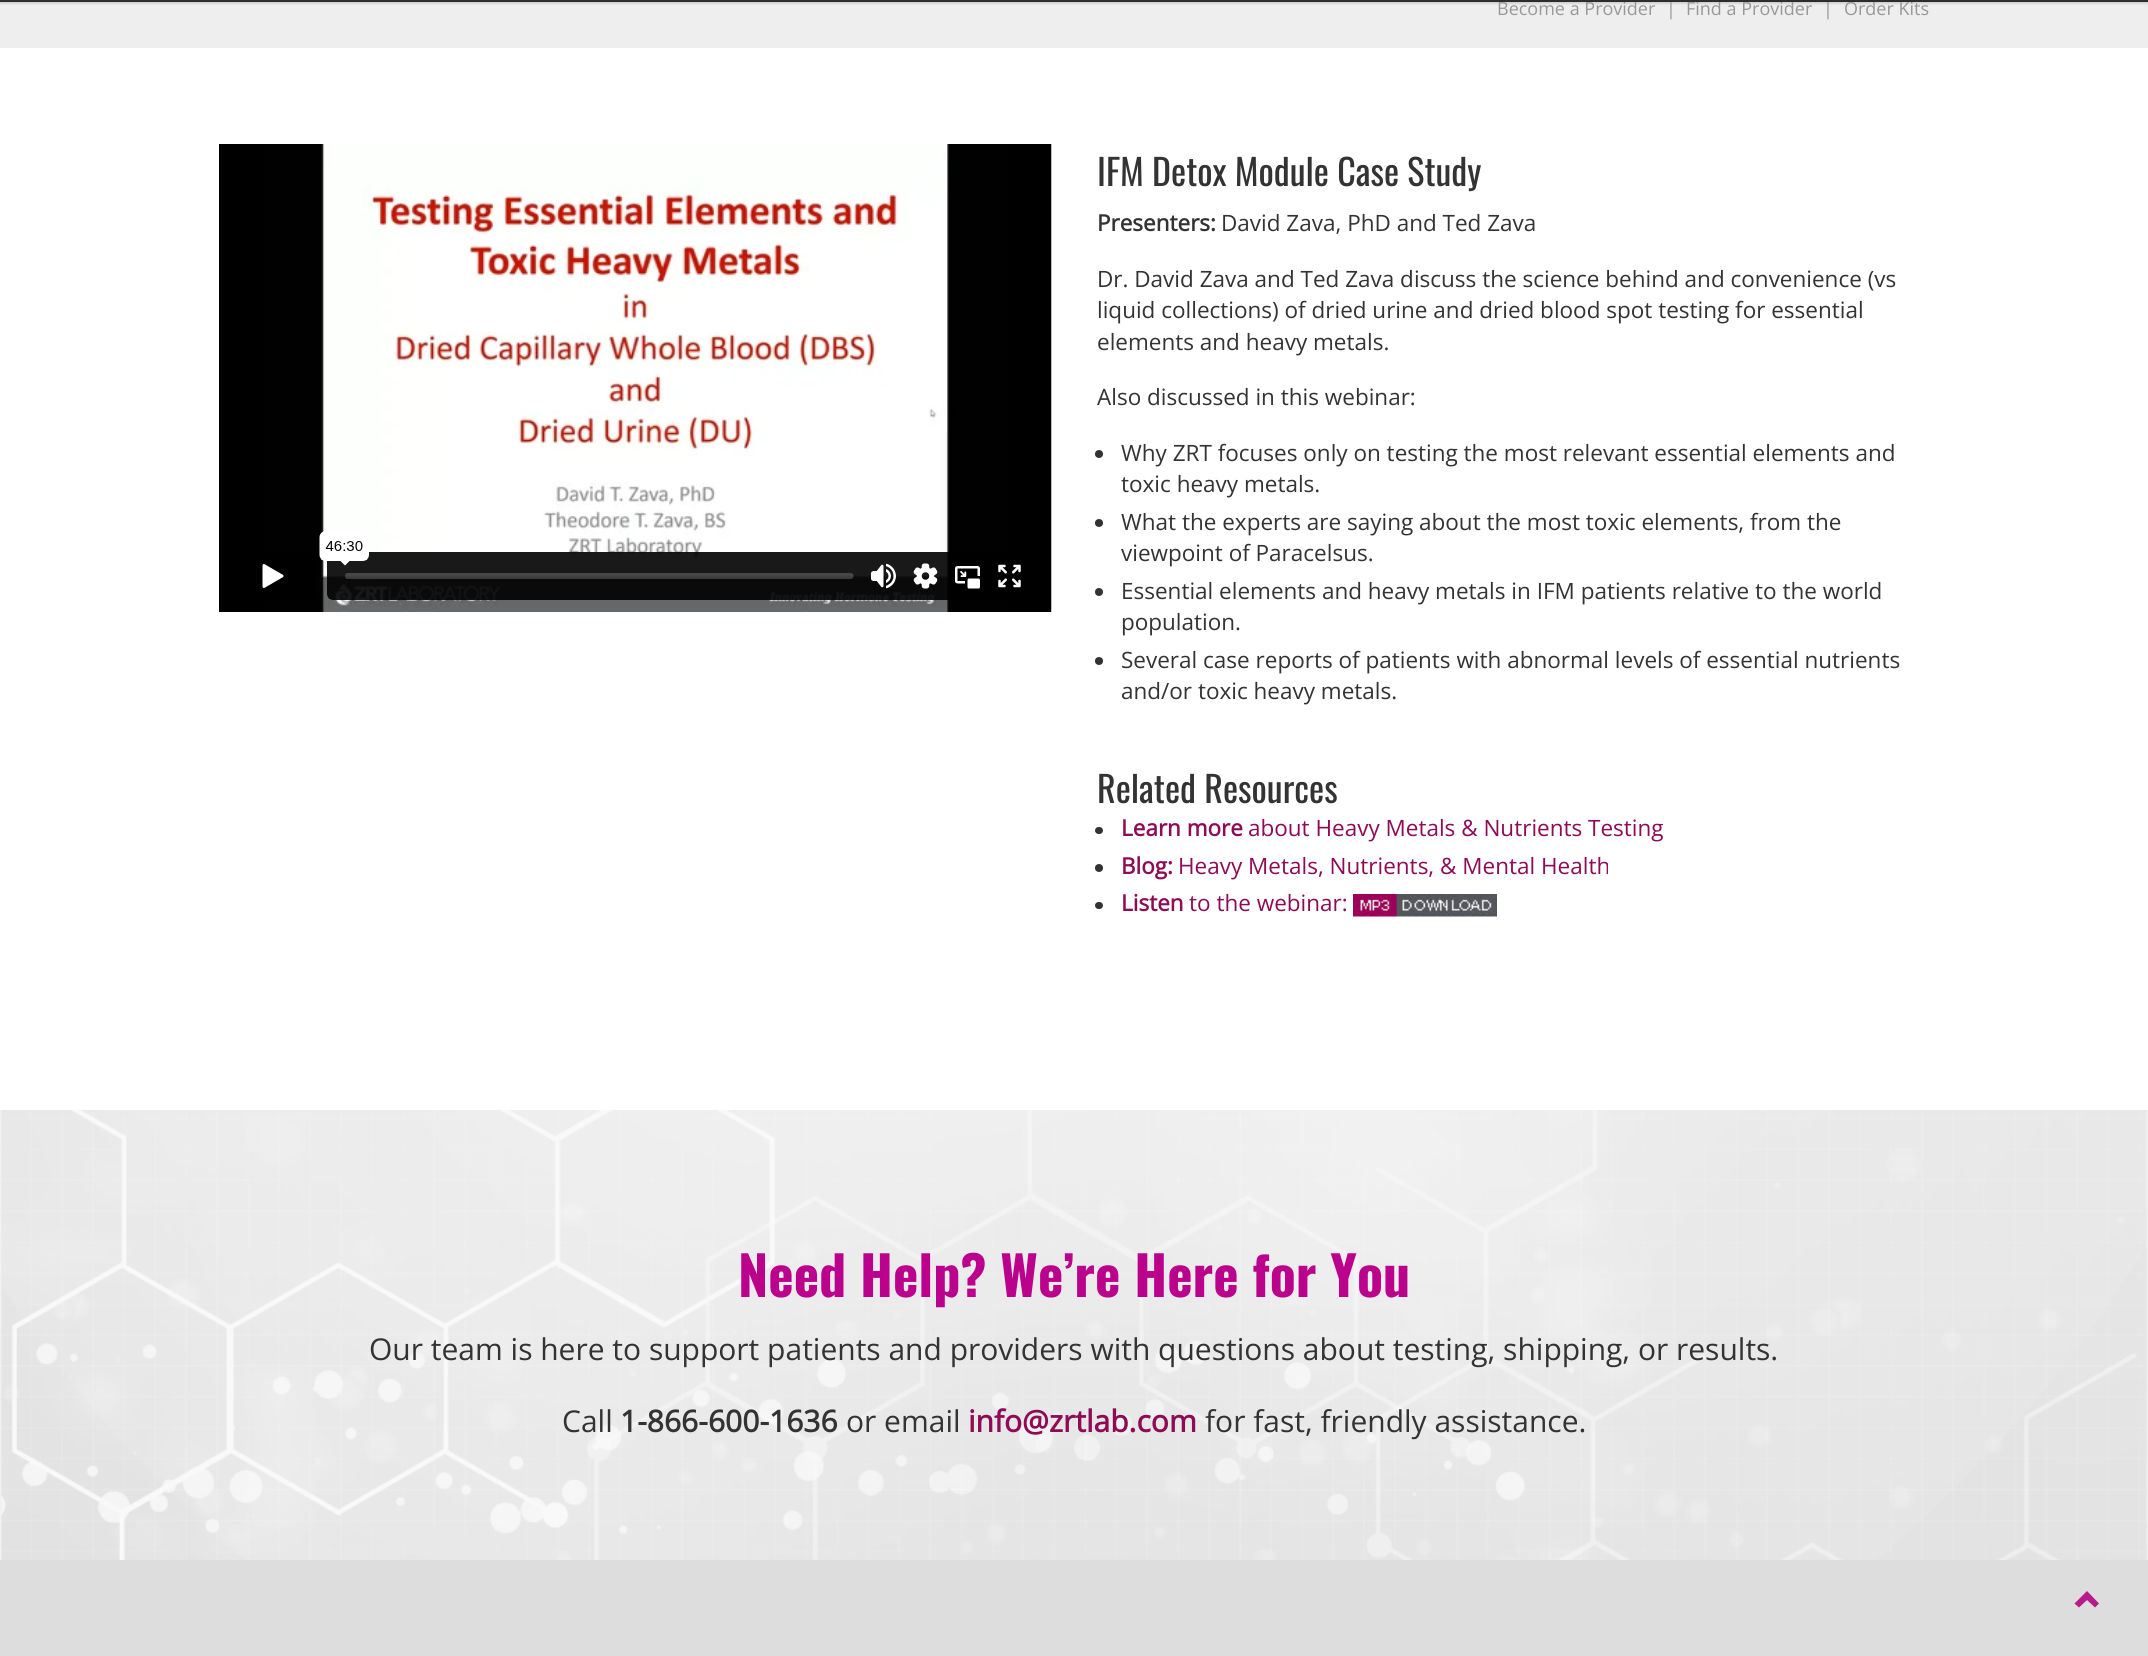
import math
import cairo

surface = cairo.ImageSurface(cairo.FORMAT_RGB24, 2148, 1656)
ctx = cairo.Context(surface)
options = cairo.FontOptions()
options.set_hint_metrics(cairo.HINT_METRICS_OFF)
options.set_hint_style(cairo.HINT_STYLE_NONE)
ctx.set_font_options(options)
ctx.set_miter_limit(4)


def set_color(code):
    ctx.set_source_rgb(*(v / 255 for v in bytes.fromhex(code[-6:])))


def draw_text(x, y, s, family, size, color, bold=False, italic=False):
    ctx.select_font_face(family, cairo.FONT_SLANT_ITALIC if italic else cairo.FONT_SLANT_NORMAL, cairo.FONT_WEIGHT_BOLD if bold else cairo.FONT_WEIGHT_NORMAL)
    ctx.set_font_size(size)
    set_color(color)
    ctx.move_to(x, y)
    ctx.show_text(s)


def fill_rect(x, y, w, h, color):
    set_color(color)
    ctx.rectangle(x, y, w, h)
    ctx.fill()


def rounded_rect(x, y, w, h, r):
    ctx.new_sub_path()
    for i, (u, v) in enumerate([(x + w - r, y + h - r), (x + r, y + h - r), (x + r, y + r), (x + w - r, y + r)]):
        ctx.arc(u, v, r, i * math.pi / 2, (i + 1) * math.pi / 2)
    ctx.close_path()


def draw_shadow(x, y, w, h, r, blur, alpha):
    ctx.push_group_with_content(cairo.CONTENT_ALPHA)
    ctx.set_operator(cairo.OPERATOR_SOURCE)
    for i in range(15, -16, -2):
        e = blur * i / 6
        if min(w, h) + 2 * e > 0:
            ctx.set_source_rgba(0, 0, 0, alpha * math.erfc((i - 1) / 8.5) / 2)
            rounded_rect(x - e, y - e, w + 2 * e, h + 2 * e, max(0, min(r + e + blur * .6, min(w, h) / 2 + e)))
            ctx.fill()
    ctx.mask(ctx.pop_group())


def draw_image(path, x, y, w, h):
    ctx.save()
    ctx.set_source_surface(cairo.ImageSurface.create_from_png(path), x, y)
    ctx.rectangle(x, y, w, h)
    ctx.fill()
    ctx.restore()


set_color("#ffffff")
ctx.paint()
fill_rect(0, 2, 2148, 46, "#eeeeee")
set_color("#000000")
draw_shadow(0, -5, 2148, 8, 0, 1.5, 0.2)
draw_text(1497, 15, "Become a Provider", "Open Sans", 18, "#989897")
draw_text(1666, 15, "|", "Open Sans", 18, "#989897")
draw_text(1686, 15, "Find a Provider", "Open Sans", 18, "#989897")
draw_text(1823, 15, "|", "Open Sans", 18, "#989897")
draw_text(1844, 15, "Order Kits", "Open Sans", 18, "#989897")
fill_rect(0, 0, 2148, 2, "#2d2d2d")
draw_image("assets/img1.png", 219, 144, 833, 468)
draw_text(1097, 186, "IFM Detox Module Case Study", "Oswald", 36, "#333333")
draw_text(1097, 231, "Presenters:", "Open Sans", 22.5, "#333333", bold=True)
draw_text(1221, 231, "David Zava, PhD and Ted Zava", "Open Sans", 22.5, "#333333")
draw_text(1097, 287, "Dr. David Zava and Ted Zava discuss the science behind and convenience (vs", "Open Sans", 22.5, "#333333")
draw_text(1097, 318, "liquid collections) of dried urine and dried blood spot testing for essential", "Open Sans", 22.5, "#333333")
draw_text(1097, 350, "elements and heavy metals.", "Open Sans", 22.5, "#333333")
draw_text(1097, 405, "Also discussed in this webinar:", "Open Sans", 22.5, "#333333")
ctx.new_path()
ctx.arc(1099, 454, 4, 0, 2 * math.pi)
ctx.fill()
draw_text(1121, 461, "Why ZRT focuses only on testing the most relevant essential elements and", "Open Sans", 22.5, "#333333")
draw_text(1121, 492, "toxic heavy metals.", "Open Sans", 22.5, "#333333")
ctx.new_path()
ctx.arc(1099, 523, 4, 0, 2 * math.pi)
ctx.fill()
draw_text(1121, 530, "What the experts are saying about the most toxic elements, from the", "Open Sans", 22.5, "#333333")
draw_text(1121, 561, "viewpoint of Paracelsus.", "Open Sans", 22.5, "#333333")
ctx.new_path()
ctx.arc(1099, 592, 4, 0, 2 * math.pi)
ctx.fill()
draw_text(1121, 599, "Essential elements and heavy metals in IFM patients relative to the world", "Open Sans", 22.5, "#333333")
draw_text(1121, 630, "population.", "Open Sans", 22.5, "#333333")
ctx.new_path()
ctx.arc(1099, 661, 4, 0, 2 * math.pi)
ctx.fill()
draw_text(1121, 668, "Several case reports of patients with abnormal levels of essential nutrients", "Open Sans", 22.5, "#333333")
draw_text(1121, 699, "and/or toxic heavy metals.", "Open Sans", 22.5, "#333333")
draw_text(1097, 803, "Related Resources", "Oswald", 36, "#333333")
rounded_rect(1095, 827, 8, 7, 3.5)
ctx.fill()
draw_text(1121, 836, "Learn more", "Open Sans", 22.5, "#8e0b56", bold=True)
draw_text(1248, 836, "about Heavy Metals & Nutrients Testing", "Open Sans", 22.5, "#8e0b56")
set_color("#333333")
ctx.new_path()
ctx.arc(1099, 868, 4, 0, 2 * math.pi)
ctx.fill()
draw_text(1121, 874, "Blog:", "Open Sans", 22.5, "#8e0b56", bold=True)
draw_text(1178, 874, "Heavy Metals, Nutrients, & Mental Health", "Open Sans", 22.5, "#8e0b56")
set_color("#333333")
rounded_rect(1095, 902, 8, 7, 3.5)
ctx.fill()
draw_text(1121, 911, "Listen", "Open Sans", 22.5, "#8e0b56", bold=True)
draw_text(1189, 911, "to the webinar:", "Open Sans", 22.5, "#8e0b56")
draw_image("assets/img2.png", 1353, 894, 144, 23)
fill_rect(0, 1110, 2148, 450, "#f1f1f1")
draw_image("assets/img3.png", 1, 1110, 2146, 450)
draw_text(738, 1297, "Need Help? We’re Here for You", "Oswald", 54, "#bb028d", bold=True)
draw_text(369, 1360, "Our team is here to support patients and providers with questions about testing, shipping, or results.", "Open Sans", 30, "#333333")
draw_text(562, 1432, "Call", "Open Sans", 30, "#333333")
draw_text(620, 1432, "1-866-600-1636", "Open Sans", 30, "#333333", bold=True)
draw_text(846, 1432, "or email", "Open Sans", 30, "#333333")
draw_text(968, 1432, "info@zrtlab.com", "Open Sans", 30, "#8e0b56", bold=True)
draw_text(1205, 1432, "for fast, friendly assistance.", "Open Sans", 30, "#333333")
fill_rect(0, 1560, 2148, 96, "#dddddd")
set_color("#b71a8b")
ctx.new_path()
ctx.move_to(2099, 1603.5)
ctx.line_to(2095, 1607.5)
ctx.line_to(2087, 1600)
ctx.line_to(2079, 1607.5)
ctx.line_to(2074.5, 1603.5)
ctx.line_to(2087, 1591)
ctx.close_path()
ctx.fill()
surface.write_to_png("output.png")
